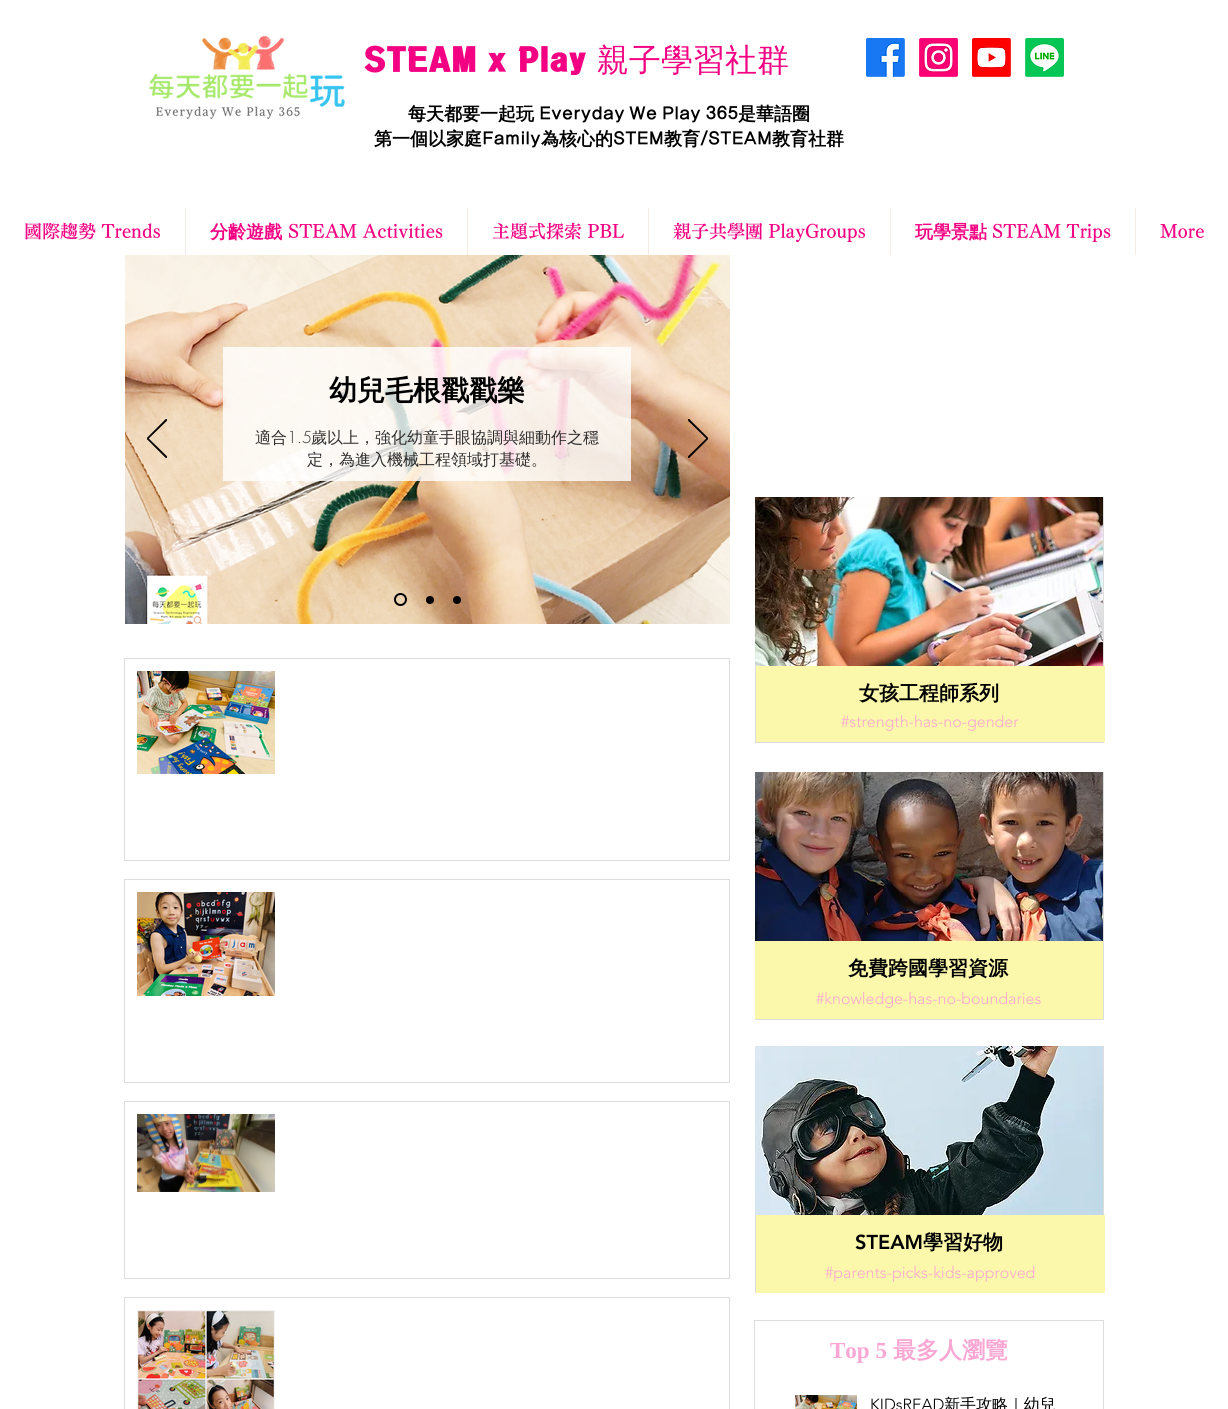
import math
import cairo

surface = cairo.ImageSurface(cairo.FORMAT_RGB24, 1228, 1409)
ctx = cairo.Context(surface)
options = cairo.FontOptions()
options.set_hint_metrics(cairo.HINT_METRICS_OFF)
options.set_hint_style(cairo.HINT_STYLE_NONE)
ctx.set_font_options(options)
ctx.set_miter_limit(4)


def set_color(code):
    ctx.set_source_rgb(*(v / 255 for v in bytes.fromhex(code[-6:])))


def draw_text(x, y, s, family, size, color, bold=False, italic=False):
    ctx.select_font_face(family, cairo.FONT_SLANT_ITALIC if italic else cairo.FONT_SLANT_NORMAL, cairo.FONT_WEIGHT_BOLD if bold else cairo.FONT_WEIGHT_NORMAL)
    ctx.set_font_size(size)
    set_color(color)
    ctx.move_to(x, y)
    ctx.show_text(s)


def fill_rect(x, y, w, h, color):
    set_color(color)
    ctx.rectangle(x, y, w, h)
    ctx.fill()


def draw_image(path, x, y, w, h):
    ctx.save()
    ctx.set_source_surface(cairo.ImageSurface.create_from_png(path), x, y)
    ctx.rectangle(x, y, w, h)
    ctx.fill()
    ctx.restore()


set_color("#ffffff")
ctx.paint()
draw_image("assets/img1.png", 149, 35, 196, 84)
draw_text(363, 71, "STEAM x Play", "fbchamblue", 32, "#f40082")
draw_text(597, 71, "親子學習社群", "WenQuanYi Zen Hei Medium", 32, "#f40082")
draw_image("assets/img2.png", 866, 38, 39, 39)
draw_image("assets/img3.png", 919, 38, 39, 39)
draw_image("assets/img4.png", 972, 38, 39, 39)
draw_image("assets/img5.png", 1025, 38, 39, 39)
draw_text(408, 120, "每天都要一起玩", "WenQuanYi Zen Hei", 18, "#000000", bold=True)
draw_text(539, 120, "Everyday We Play 365", "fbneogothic", 18, "#000000", bold=True)
draw_text(738, 120, "是華語圈", "WenQuanYi Zen Hei", 18, "#000000", bold=True)
draw_text(374, 145, "第一個以家庭", "WenQuanYi Zen Hei", 18, "#000000", bold=True)
draw_text(482, 145, "Family", "fbneogothic", 18, "#000000", bold=True)
draw_text(541, 145, "為核心的", "WenQuanYi Zen Hei", 18, "#000000", bold=True)
draw_text(613, 145, "STEM", "fbneogothic", 18, "#000000", bold=True)
draw_text(664, 145, "教育", "WenQuanYi Zen Hei", 18, "#000000", bold=True)
draw_text(700, 145, "/STEAM", "fbneogothic", 18, "#000000", bold=True)
draw_text(772, 145, "教育社群", "WenQuanYi Zen Hei", 18, "#000000", bold=True)
draw_text(24, 238, "國際趨勢 Trends", "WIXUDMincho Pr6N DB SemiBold", 18, "#f40082")
fill_rect(185, 208, 1, 47, "#f6ebe4")
draw_text(210, 238, "分齡遊戲", "WenQuanYi Zen Hei", 18, "#f40082", bold=True)
draw_text(288, 238, "STEAM Activities", "WIXUDMincho Pr6N DB SemiBold", 18, "#f40082")
fill_rect(467, 208, 1, 47, "#f6ebe4")
draw_text(492, 238, "主題式探索 PBL", "WIXUDMincho Pr6N DB SemiBold", 18, "#f40082")
fill_rect(648, 208, 1, 47, "#f6ebe4")
draw_text(673, 238, "親子共學團 PlayGroups", "WIXUDMincho Pr6N DB SemiBold", 18, "#f40082")
fill_rect(890, 208, 1, 47, "#f6ebe4")
draw_text(915, 238, "玩學景點", "WenQuanYi Zen Hei", 18, "#f40082", bold=True)
draw_text(992, 238, "STEAM Trips", "WIXUDMincho Pr6N DB SemiBold", 18, "#f40082")
fill_rect(1135, 208, 1, 47, "#f6ebe4")
draw_text(1160, 238, "More", "WIXUDMincho Pr6N DB SemiBold", 18, "#f40082")
draw_image("assets/img6.png", 125, 255, 605, 369)
ctx.save()
ctx.rectangle(147, 419, 20, 39)
ctx.clip()
ctx.new_path()
ctx.move_to(166.5, 458)
ctx.line_to(147, 438.5)
ctx.line_to(166.5, 419)
ctx.line_to(167, 420)
ctx.line_to(148, 438.5)
ctx.line_to(167, 457)
ctx.close_path()
set_color("#000000")
ctx.set_line_width(1)
ctx.stroke()
ctx.restore()
ctx.set_source_rgba(1, 1, 1, 0.8)
ctx.rectangle(223, 347, 408, 134)
ctx.fill()
draw_text(329, 400, "幼兒毛根戳戳樂", "WenQuanYi Zen Hei", 28, "#000000", bold=True)
draw_text(255, 443, "適合", "WenQuanYi Zen Hei Medium", 16, "#2f2e2e")
draw_text(287, 443, "1.5", "futura Light", 16, "#2f2e2e")
draw_text(311, 443, "歲以上，強化幼童手眼協調與細動作之穩", "WenQuanYi Zen Hei Medium", 16, "#2f2e2e")
draw_text(307, 465, "定，為進入機械工程領域打基礎。", "WenQuanYi Zen Hei Medium", 16, "#2f2e2e")
ctx.save()
ctx.rectangle(688, 419, 20, 39)
ctx.clip()
ctx.new_path()
ctx.move_to(688.5, 458)
ctx.line_to(708, 438.5)
ctx.line_to(688.5, 419)
ctx.line_to(688, 420)
ctx.line_to(707, 438.5)
ctx.line_to(688, 457)
ctx.close_path()
set_color("#000000")
ctx.set_line_width(1)
ctx.stroke()
ctx.restore()
ctx.arc(400.5, 599.5, 5.5, 0, 2 * math.pi)
set_color("#000000")
ctx.stroke()
ctx.arc(430, 600, 4, 0, 2 * math.pi)
ctx.fill()
ctx.arc(457, 600, 4, 0, 2 * math.pi)
ctx.fill()
ctx.rectangle(124.5, 658.5, 605, 202)
set_color("#dddddd")
ctx.set_line_width(1)
ctx.stroke()
draw_image("assets/img7.png", 137, 671, 138, 103)
ctx.rectangle(124.5, 879.5, 605, 203)
ctx.stroke()
draw_image("assets/img8.png", 137, 892, 138, 104)
ctx.rectangle(124.5, 1101.5, 605, 177)
ctx.stroke()
draw_image("assets/img9.png", 137, 1114, 138, 78)
draw_image("assets/img10.png", 137, 1191, 138, 1)
ctx.rectangle(124.5, 1297.5, 605, 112)
ctx.stroke()
draw_image("assets/img11.png", 137, 1310, 138, 99)
ctx.rectangle(755.5, 497.5, 348, 245)
ctx.stroke()
draw_image("assets/img12.png", 755, 497, 348, 169)
fill_rect(756, 666, 349, 76, "#fbf7ab")
draw_text(859, 700, "女孩工程師系列", "WenQuanYi Zen Hei", 20, "#000000", bold=True)
draw_text(841, 727, "#strength-has-no-gender", "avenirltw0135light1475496 Light", 16, "#fba7d4")
ctx.rectangle(755.5, 772.5, 348, 247)
set_color("#dddddd")
ctx.stroke()
draw_image("assets/img13.png", 755, 772, 348, 169)
fill_rect(755, 941, 348, 78, "#fbf7ab")
draw_text(848, 975, "免費跨國學習資源", "WenQuanYi Zen Hei", 20, "#000000", bold=True)
draw_text(816, 1004, "#knowledge-has-no-boundaries", "avenirltw0135light1475496 Light", 16, "#fba7d4")
ctx.rectangle(755.5, 1046.5, 348, 246)
set_color("#dddddd")
ctx.stroke()
draw_image("assets/img14.png", 755, 1046, 348, 169)
fill_rect(756, 1215, 349, 78, "#fbf7ab")
draw_text(855, 1249, "STEAM", "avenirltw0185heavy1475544 Black", 20, "#000000")
draw_text(923, 1249, "學習好物", "WenQuanYi Zen Hei", 20, "#000000", bold=True)
draw_text(825, 1278, "#parents-picks-kids-approved", "avenirltw0135light1475496 Light", 16, "#fba7d4")
ctx.rectangle(754.5, 1320.5, 349, 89)
set_color("#dddddd")
ctx.stroke()
draw_text(830, 1358, "Top 5", "Liberation Serif", 23, "#fba7d4", bold=True)
draw_text(893, 1358, "最多人瀏覽", "WenQuanYi Zen Hei", 23, "#fba7d4", bold=True)
draw_image("assets/img15.png", 795, 1395, 62, 14)
draw_text(870, 1410, "KIDsREAD", "avenirltw0135light1475496 Light", 16, "#000000")
draw_text(944, 1410, "新手攻略｜幼兒", "WenQuanYi Zen Hei Medium", 16, "#000000")
surface.write_to_png("output.png")
